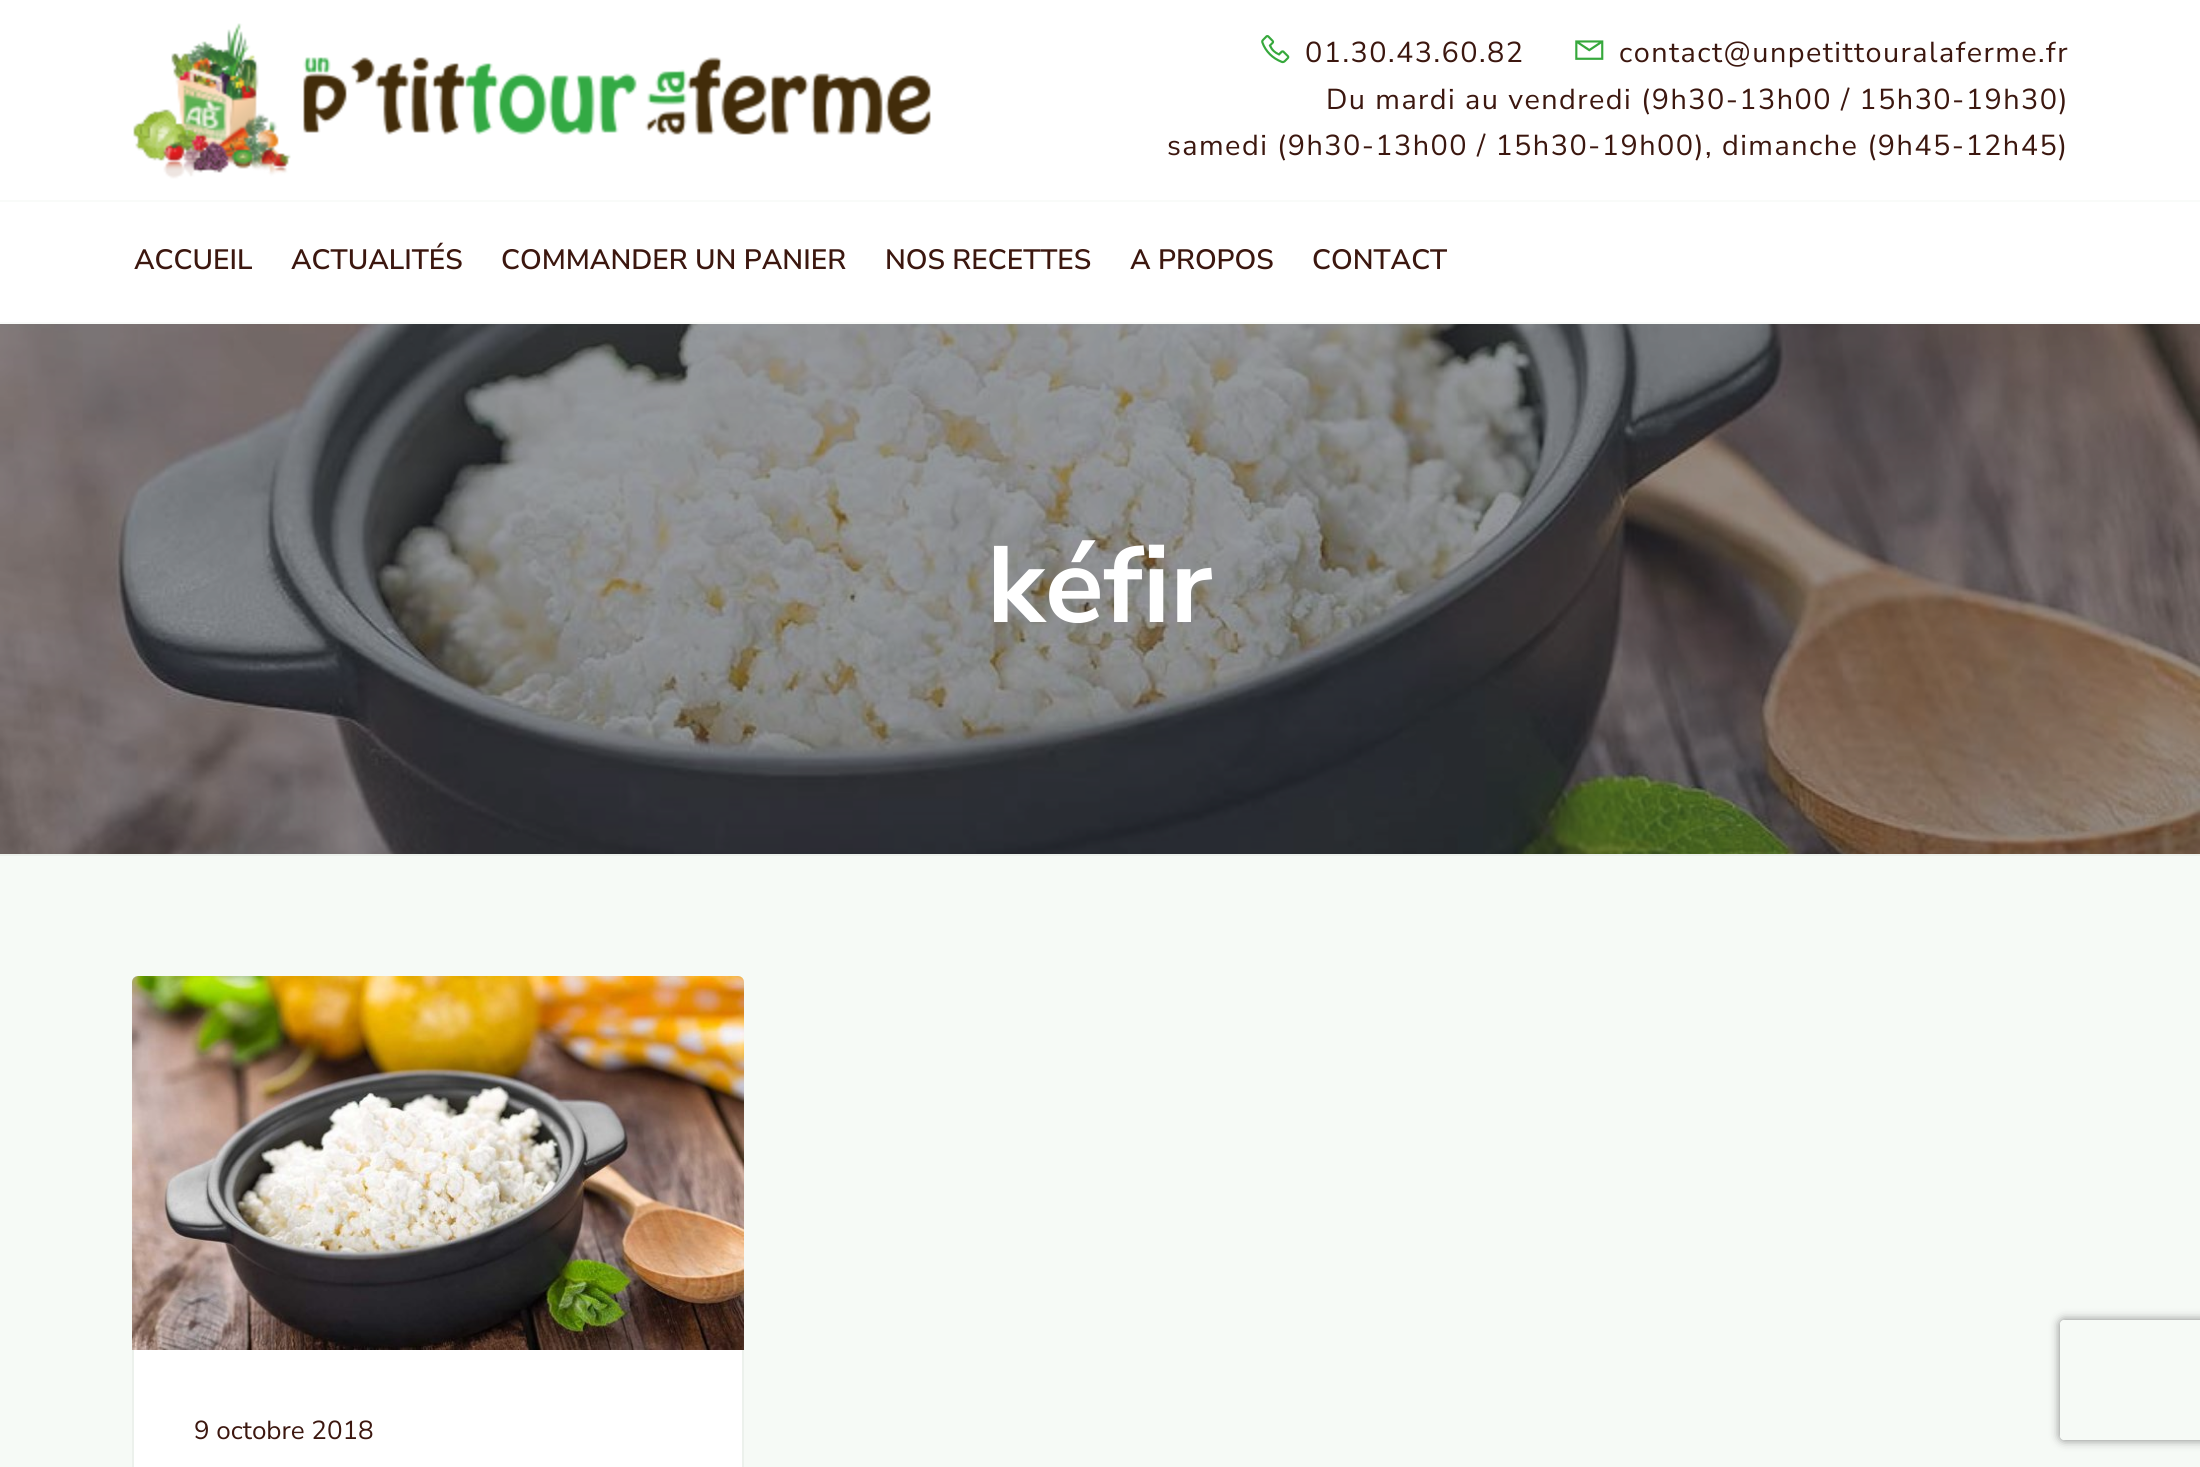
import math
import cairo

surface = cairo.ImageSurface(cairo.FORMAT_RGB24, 2200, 1467)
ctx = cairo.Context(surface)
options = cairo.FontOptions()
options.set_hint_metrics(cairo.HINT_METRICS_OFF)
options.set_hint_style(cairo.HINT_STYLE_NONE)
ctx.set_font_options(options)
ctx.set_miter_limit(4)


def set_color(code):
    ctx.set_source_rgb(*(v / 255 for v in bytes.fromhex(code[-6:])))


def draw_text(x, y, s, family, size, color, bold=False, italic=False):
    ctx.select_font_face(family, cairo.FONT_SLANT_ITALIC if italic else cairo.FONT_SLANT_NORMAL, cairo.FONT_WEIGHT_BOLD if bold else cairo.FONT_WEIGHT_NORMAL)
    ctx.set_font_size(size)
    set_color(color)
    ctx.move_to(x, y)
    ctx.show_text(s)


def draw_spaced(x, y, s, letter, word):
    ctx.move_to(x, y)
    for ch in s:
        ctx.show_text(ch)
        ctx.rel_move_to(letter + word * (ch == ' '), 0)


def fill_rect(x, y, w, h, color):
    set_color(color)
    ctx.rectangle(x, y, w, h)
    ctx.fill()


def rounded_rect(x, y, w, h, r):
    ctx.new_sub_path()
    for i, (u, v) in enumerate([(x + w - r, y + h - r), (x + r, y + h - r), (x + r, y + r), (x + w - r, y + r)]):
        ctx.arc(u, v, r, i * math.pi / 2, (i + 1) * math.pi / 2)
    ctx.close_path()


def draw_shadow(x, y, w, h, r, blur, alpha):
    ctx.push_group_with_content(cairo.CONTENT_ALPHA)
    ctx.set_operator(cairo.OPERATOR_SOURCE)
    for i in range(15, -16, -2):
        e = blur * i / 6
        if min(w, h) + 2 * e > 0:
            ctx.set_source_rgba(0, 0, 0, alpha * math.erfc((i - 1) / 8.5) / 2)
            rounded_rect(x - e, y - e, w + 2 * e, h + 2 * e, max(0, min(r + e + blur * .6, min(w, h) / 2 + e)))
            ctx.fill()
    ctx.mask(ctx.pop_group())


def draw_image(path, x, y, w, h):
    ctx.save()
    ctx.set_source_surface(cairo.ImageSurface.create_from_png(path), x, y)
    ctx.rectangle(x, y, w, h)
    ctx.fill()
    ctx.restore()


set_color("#f6faf6")
ctx.paint()
fill_rect(0, 0, 2200, 322, "#ffffff")
fill_rect(0, 322, 2200, 2, "#f9fbf9")
draw_image("assets/img1.png", 133, 23, 798, 156)
draw_image("assets/img2.png", 1261, 35, 29, 29)
ctx.select_font_face("Nunito Sans")
ctx.set_font_size(28.8)
set_color("#3c170f")
draw_spaced(1305, 62, "01.30.43.60.82", 1.45, 0)
draw_image("assets/img3.png", 1575, 40, 29, 20)
draw_spaced(1619, 62, "contact@unpetittouralaferme.fr", 1.45, 0)
draw_spaced(1326, 109, "Du mardi au vendredi (9h30-13h00 / 15h30-19h30)", 1.45, 0)
draw_spaced(1167, 155, "samedi (9h30-13h00 / 15h30-19h00), dimanche (9h45-12h45)", 1.45, 0)
fill_rect(0, 200, 2200, 2, "#f9fbf9")
draw_text(134, 269, "ACCUEIL", "Nunito Sans SemiBold", 28, "#3c170f")
draw_text(291, 269, "ACTUALITÉS", "Nunito Sans SemiBold", 28, "#3c170f")
draw_text(501, 269, "COMMANDER UN PANIER", "Nunito Sans SemiBold", 28, "#3c170f")
draw_text(885, 269, "NOS RECETTES", "Nunito Sans SemiBold", 28, "#3c170f")
draw_text(1130, 269, "A PROPOS", "Nunito Sans SemiBold", 28, "#3c170f")
draw_text(1312, 269, "CONTACT", "Nunito Sans SemiBold", 28, "#3c170f")
draw_image("assets/img4.png", 0, 324, 2200, 530)
fill_rect(0, 854, 2200, 2, "#ecf1ec")
draw_text(987, 622, "kéfir", "Nunito Sans", 108, "#ffffff", bold=True)
rounded_rect(133, 977, 610, 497, 5)
ctx.fill_preserve()
set_color("#ecf1ec")
ctx.stroke()
draw_image("assets/img5.png", 132, 976, 612, 374)
draw_text(194, 1439, "9 octobre 2018", "Nunito Sans", 26, "#3c170f")
ctx.save()
ctx.set_fill_rule(cairo.FILL_RULE_EVEN_ODD)
ctx.new_path()
ctx.move_to(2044, 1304)
ctx.line_to(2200, 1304)
ctx.line_to(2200, 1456)
ctx.line_to(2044, 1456)
ctx.close_path()
ctx.move_to(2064, 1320)
ctx.line_to(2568, 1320)
ctx.curve_to(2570, 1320, 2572, 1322, 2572, 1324)
ctx.line_to(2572, 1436)
ctx.curve_to(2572, 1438, 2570, 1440, 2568, 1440)
ctx.line_to(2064, 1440)
ctx.curve_to(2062, 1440, 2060, 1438, 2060, 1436)
ctx.line_to(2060, 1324)
ctx.curve_to(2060, 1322, 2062, 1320, 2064, 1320)
ctx.close_path()
ctx.clip()
set_color("#808080")
draw_shadow(2060, 1320, 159, 120, 4, 5, 1)
ctx.restore()
surface.write_to_png("output.png")
